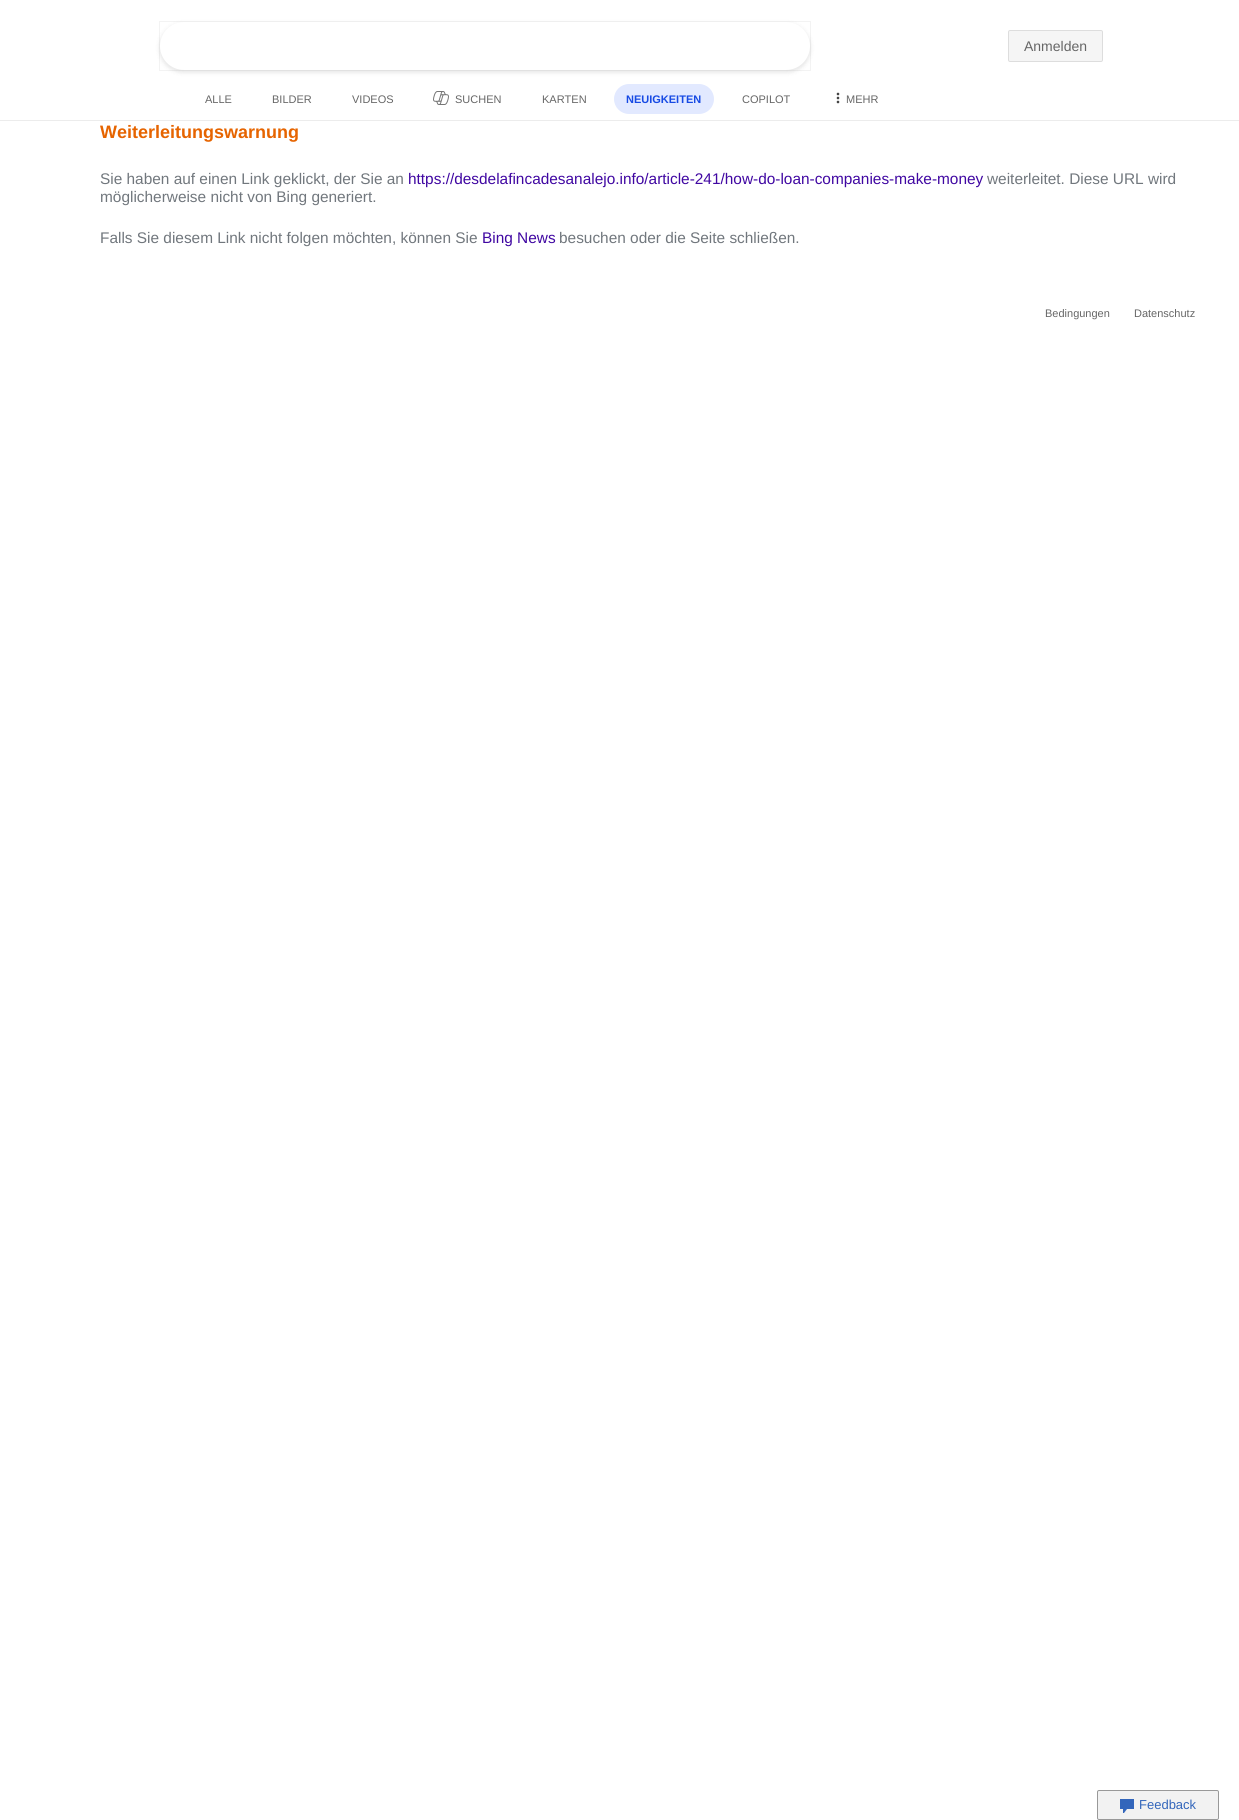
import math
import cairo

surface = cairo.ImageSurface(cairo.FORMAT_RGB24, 1239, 1820)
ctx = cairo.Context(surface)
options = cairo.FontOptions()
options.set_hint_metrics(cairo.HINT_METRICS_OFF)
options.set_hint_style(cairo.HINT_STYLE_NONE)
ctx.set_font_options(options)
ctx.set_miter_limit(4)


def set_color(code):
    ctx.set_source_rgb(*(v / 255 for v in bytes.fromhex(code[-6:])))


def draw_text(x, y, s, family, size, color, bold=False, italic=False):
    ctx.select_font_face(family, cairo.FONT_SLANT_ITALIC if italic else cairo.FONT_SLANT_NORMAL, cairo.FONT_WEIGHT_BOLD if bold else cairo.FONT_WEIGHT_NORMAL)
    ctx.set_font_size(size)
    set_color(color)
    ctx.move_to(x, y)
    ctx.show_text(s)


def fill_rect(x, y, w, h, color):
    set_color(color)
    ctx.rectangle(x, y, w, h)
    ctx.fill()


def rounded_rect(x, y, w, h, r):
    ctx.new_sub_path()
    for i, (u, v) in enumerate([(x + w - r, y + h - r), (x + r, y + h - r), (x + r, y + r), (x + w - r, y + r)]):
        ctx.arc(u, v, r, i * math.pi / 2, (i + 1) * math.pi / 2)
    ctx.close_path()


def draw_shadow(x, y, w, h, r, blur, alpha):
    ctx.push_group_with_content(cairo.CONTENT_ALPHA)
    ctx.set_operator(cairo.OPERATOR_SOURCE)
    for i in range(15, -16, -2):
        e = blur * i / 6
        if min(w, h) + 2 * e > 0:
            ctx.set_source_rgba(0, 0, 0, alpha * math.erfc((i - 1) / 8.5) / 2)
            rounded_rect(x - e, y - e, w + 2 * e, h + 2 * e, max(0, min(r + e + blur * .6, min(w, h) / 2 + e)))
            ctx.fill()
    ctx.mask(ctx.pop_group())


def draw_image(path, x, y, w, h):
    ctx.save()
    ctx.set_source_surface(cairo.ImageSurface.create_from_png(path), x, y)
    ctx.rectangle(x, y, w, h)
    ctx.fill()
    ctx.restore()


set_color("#ffffff")
ctx.paint()
fill_rect(0, 120, 1239, 1, "#ececec")
set_color("#000000")
draw_shadow(159, 23, 652, 50, 25, 2, 0.09)
ctx.rectangle(159.5, 21.5, 651, 49)
ctx.set_source_rgba(0, 0, 0, 0.05)
ctx.set_line_width(1)
ctx.stroke()
set_color("#ffffff")
rounded_rect(160, 22, 650, 48, 24)
ctx.fill()
set_color("#f5f5f5")
rounded_rect(1008.5, 30.5, 94, 31, 1.5)
ctx.fill_preserve()
set_color("#dddddd")
ctx.stroke()
draw_text(1024, 51, "Anmelden", "Liberation Sans", 14, "#666666")
draw_text(205, 103, "ALLE", "Liberation Sans", 11, "#666666")
draw_text(272, 103, "BILDER", "Liberation Sans", 11, "#666666")
draw_text(352, 103, "VIDEOS", "Liberation Sans", 11, "#666666")
draw_image("assets/img1.png", 433, 91, 16, 14)
draw_text(455, 103, "SUCHEN", "Liberation Sans", 11, "#666666")
draw_text(542, 103, "KARTEN", "Liberation Sans", 11, "#666666")
set_color("#e2e9ff")
rounded_rect(614, 84, 100, 30, 15)
ctx.fill()
draw_text(626, 103, "NEUIGKEITEN", "Liberation Sans", 11, "#174ae4", bold=True)
draw_text(742, 103, "COPILOT", "Liberation Sans", 11, "#666666")
draw_image("assets/img2.png", 836, 92, 4, 12)
draw_text(846, 103, "MEHR", "Liberation Sans", 11, "#666666")
draw_text(100, 138, "Weiterleitungswarnung", "Liberation Sans", 18, "#e66400", bold=True)
draw_text(100, 184, "Sie haben auf einen Link geklickt, der Sie an", "Liberation Sans", 15.4, "#71777d")
draw_text(408, 184, "https://desdelafincadesanalejo.info/article-241/how-do-loan-companies-make-money", "Liberation Sans", 15.4, "#4007a2")
draw_text(987, 184, "weiterleitet. Diese URL wird", "Liberation Sans", 15.4, "#71777d")
draw_text(100, 202, "möglicherweise nicht von Bing generiert.", "Liberation Sans", 15.4, "#71777d")
draw_text(100, 243, "Falls Sie diesem Link nicht folgen möchten, können Sie", "Liberation Sans", 15.4, "#71777d")
draw_text(482, 243, "Bing News", "Liberation Sans", 15.4, "#4007a2")
draw_text(559, 243, "besuchen oder die Seite schließen.", "Liberation Sans", 15.4, "#71777d")
draw_text(1045, 317, "Bedingungen", "Liberation Sans", 11, "#666666")
draw_text(1134, 317, "Datenschutz", "Liberation Sans", 11, "#666666")
set_color("#f2f2f2")
rounded_rect(1097.5, 1790.5, 121, 29, 1.5)
ctx.fill_preserve()
set_color("#999999")
ctx.stroke()
draw_image("assets/img3.png", 1120, 1799, 14, 14)
draw_text(1139, 1809, "Feedback", "Liberation Sans", 13, "#3366bb")
surface.write_to_png("output.png")
